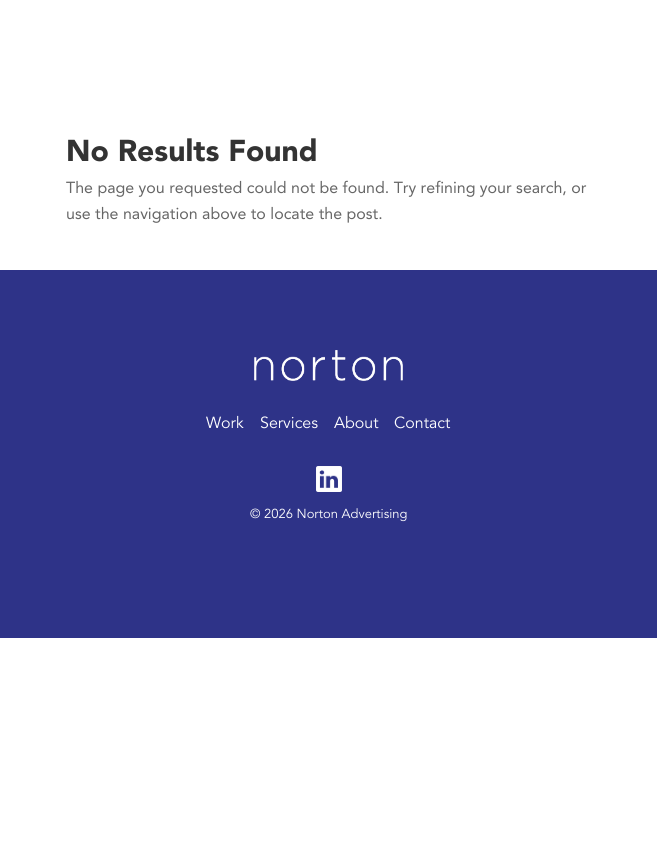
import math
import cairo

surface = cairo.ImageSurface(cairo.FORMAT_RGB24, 657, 852)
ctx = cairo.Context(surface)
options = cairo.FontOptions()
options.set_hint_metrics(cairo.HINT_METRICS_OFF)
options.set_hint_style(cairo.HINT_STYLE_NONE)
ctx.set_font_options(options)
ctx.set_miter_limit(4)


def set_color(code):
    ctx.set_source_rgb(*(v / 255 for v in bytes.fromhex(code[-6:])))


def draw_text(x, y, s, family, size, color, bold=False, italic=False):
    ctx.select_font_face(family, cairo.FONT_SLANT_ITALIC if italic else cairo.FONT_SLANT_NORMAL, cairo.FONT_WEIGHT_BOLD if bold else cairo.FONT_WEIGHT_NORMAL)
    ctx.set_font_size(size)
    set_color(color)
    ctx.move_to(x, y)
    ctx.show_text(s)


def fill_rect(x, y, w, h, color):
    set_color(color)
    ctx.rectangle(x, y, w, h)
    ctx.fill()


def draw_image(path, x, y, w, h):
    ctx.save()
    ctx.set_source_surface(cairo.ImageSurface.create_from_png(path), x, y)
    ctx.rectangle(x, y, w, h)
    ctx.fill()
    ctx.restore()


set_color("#ffffff")
ctx.paint()
draw_text(66, 161, "No Results Found", "Avenir Black", 30, "#333333")
draw_text(66, 193, "The page you requested could not be found. Try refining your search, or", "Avenir", 16, "#666666")
draw_text(66, 219, "use the navigation above to locate the post.", "Avenir", 16, "#666666")
fill_rect(0, 270, 657, 368, "#2e3388")
draw_image("assets/img1.png", 254, 350, 149, 31)
draw_text(206, 428, "Work", "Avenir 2", 16, "#ffffff")
draw_text(260, 428, "Services", "Avenir 2", 16, "#ffffff")
draw_text(334, 428, "About", "Avenir 2", 16, "#ffffff")
draw_text(394, 428, "Contact", "Avenir 2", 16, "#ffffff")
draw_image("assets/img2.png", 316, 466, 26, 26)
draw_text(250, 518, "© 2026 Norton Advertising", "Avenir 2", 13, "#ffffff")
surface.write_to_png("output.png")
